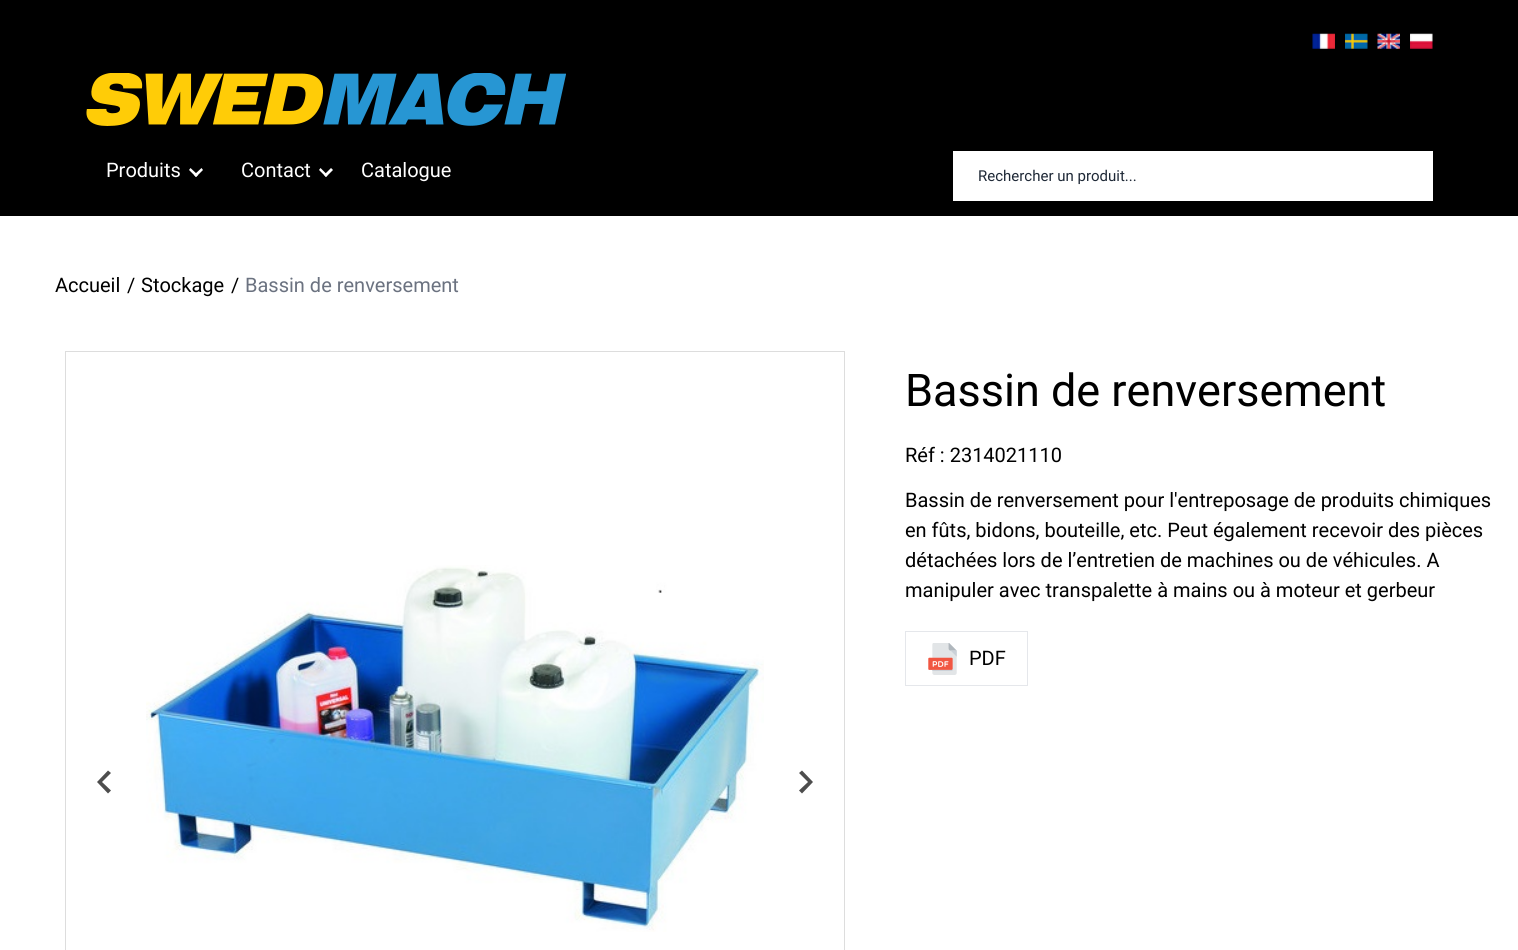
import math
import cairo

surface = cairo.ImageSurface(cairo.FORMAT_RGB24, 1518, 950)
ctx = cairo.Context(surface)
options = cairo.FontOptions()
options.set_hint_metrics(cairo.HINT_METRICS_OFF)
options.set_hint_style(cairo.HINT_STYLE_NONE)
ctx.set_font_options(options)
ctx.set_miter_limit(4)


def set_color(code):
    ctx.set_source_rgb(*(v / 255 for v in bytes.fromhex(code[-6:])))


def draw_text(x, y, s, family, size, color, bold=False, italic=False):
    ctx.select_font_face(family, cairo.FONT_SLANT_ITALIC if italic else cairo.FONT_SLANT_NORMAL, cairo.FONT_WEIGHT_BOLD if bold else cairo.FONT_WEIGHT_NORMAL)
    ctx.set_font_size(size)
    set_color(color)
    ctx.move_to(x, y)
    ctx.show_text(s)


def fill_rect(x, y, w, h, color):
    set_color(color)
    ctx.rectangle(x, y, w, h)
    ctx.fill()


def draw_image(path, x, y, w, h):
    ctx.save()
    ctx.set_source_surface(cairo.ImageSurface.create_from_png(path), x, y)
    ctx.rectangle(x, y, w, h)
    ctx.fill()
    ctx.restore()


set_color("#ffffff")
ctx.paint()
fill_rect(0, 0, 1518, 216, "#000000")
draw_image("assets/img1.png", 1312, 33, 23, 16)
draw_image("assets/img2.png", 1345, 33, 23, 16)
draw_image("assets/img3.png", 1377, 33, 23, 16)
draw_image("assets/img4.png", 1410, 33, 23, 16)
draw_image("assets/img5.png", 86, 73, 480, 53)
draw_text(106, 177, "Produits", "Roboto", 20, "#ffffff")
ctx.new_path()
ctx.move_to(201.5, 168)
ctx.line_to(203, 170)
ctx.line_to(196, 177)
ctx.line_to(194, 175)
ctx.close_path()
ctx.fill()
ctx.new_path()
ctx.move_to(190.5, 168)
ctx.line_to(198, 175)
ctx.line_to(196, 177)
ctx.line_to(189, 170)
ctx.close_path()
ctx.fill()
draw_text(241, 177, "Contact", "Roboto", 20, "#ffffff")
ctx.new_path()
ctx.move_to(331, 168)
ctx.line_to(333, 170)
ctx.line_to(326, 177)
ctx.line_to(324, 175)
ctx.close_path()
ctx.fill()
ctx.new_path()
ctx.move_to(320.5, 168)
ctx.line_to(327.5, 175)
ctx.line_to(326, 177)
ctx.line_to(319, 170)
ctx.close_path()
ctx.fill()
draw_text(361, 177, "Catalogue", "Roboto", 20, "#ffffff")
fill_rect(953, 151, 480, 50, "#ffffff")
draw_text(978, 181, "Rechercher un produit...", "Roboto", 15, "#1f2937")
draw_text(55, 292, "Accueil", "Roboto", 20, "#000000")
draw_text(127, 292, "/", "Roboto", 20, "#000000")
draw_text(141, 292, "Stockage", "Roboto", 20, "#000000")
draw_text(231, 292, "/", "Roboto", 20, "#000000")
draw_text(245, 292, "Bassin de renversement", "Roboto", 20, "#6b7280")
ctx.rectangle(65.5, 351.5, 779, 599)
set_color("#dddddd")
ctx.set_line_width(1)
ctx.stroke()
draw_image("assets/img6.png", 146, 565, 618, 367)
set_color("#4d4d4d")
ctx.new_path()
ctx.move_to(108, 770.5)
ctx.line_to(111, 773)
ctx.line_to(102, 782)
ctx.line_to(111, 790.5)
ctx.line_to(108, 793.5)
ctx.line_to(97, 782)
ctx.close_path()
ctx.fill()
ctx.new_path()
ctx.move_to(802, 770.5)
ctx.line_to(799, 773)
ctx.line_to(808, 782)
ctx.line_to(799, 790.5)
ctx.line_to(802, 793.5)
ctx.line_to(813, 782)
ctx.close_path()
ctx.fill()
draw_text(905, 406, "Bassin de renversement", "Roboto", 45, "#000000")
draw_text(905, 462, "Réf : 2314021110", "Roboto", 20, "#000000")
draw_text(905, 507, "Bassin de renversement pour l'entreposage de produits chimiques", "Roboto", 20, "#000000")
draw_text(905, 537, "en fûts, bidons, bouteille, etc. Peut également recevoir des pièces", "Roboto", 20, "#000000")
draw_text(905, 567, "détachées lors de l’entretien de machines ou de véhicules. A", "Roboto", 20, "#000000")
draw_text(905, 597, "manipuler avec transpalette à mains ou à moteur et gerbeur", "Roboto", 20, "#000000")
ctx.rectangle(905.5, 631.5, 122, 54)
set_color("#e5e7eb")
ctx.stroke()
draw_image("assets/img7.png", 928, 643, 29, 32)
draw_text(969, 665, "PDF", "Roboto", 20, "#000000")
surface.write_to_png("output.png")
